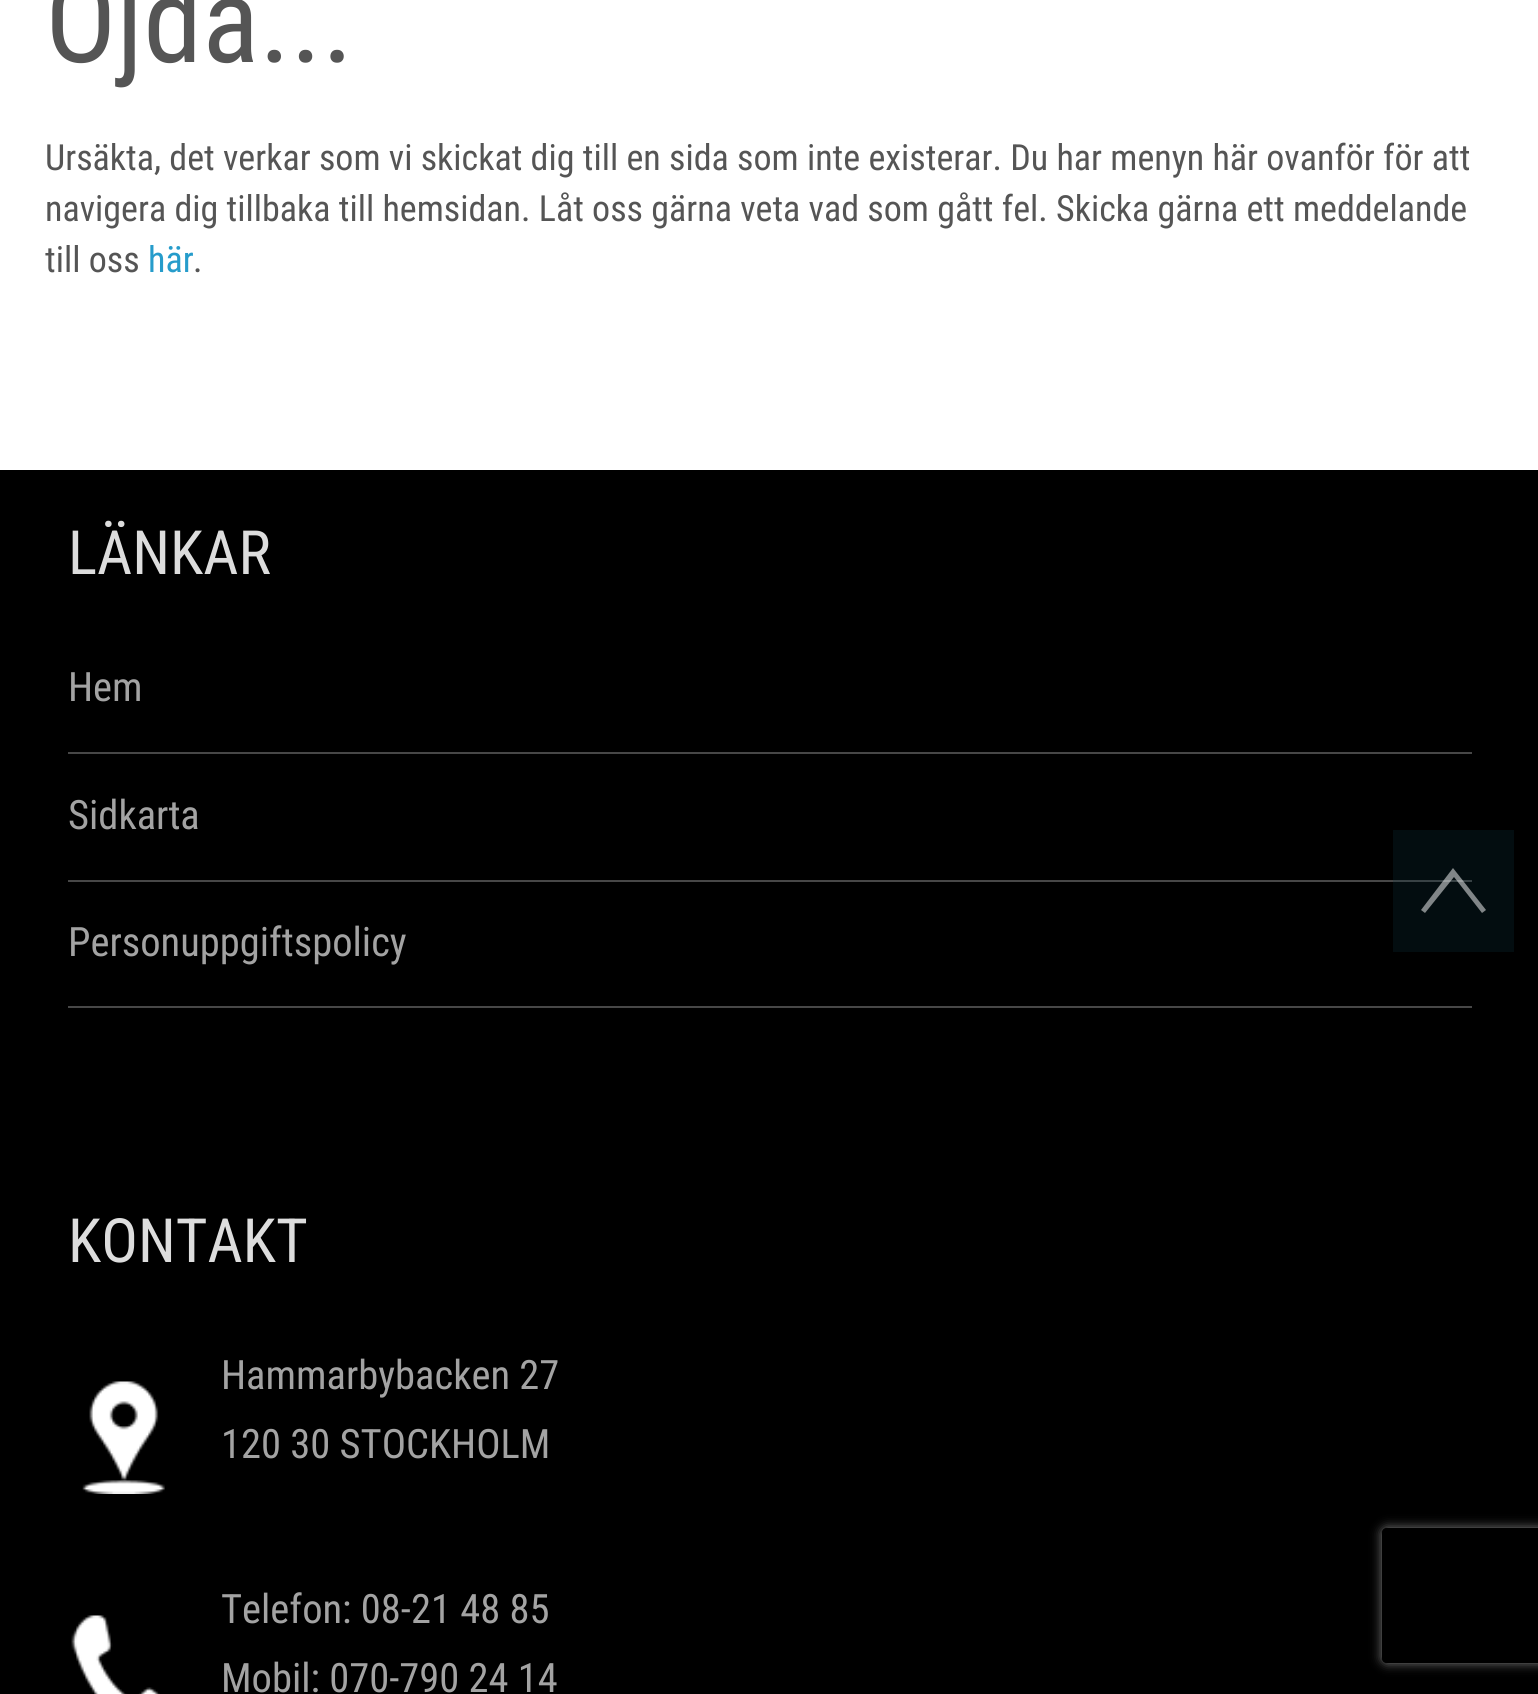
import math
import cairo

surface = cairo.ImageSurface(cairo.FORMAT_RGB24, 1538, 1694)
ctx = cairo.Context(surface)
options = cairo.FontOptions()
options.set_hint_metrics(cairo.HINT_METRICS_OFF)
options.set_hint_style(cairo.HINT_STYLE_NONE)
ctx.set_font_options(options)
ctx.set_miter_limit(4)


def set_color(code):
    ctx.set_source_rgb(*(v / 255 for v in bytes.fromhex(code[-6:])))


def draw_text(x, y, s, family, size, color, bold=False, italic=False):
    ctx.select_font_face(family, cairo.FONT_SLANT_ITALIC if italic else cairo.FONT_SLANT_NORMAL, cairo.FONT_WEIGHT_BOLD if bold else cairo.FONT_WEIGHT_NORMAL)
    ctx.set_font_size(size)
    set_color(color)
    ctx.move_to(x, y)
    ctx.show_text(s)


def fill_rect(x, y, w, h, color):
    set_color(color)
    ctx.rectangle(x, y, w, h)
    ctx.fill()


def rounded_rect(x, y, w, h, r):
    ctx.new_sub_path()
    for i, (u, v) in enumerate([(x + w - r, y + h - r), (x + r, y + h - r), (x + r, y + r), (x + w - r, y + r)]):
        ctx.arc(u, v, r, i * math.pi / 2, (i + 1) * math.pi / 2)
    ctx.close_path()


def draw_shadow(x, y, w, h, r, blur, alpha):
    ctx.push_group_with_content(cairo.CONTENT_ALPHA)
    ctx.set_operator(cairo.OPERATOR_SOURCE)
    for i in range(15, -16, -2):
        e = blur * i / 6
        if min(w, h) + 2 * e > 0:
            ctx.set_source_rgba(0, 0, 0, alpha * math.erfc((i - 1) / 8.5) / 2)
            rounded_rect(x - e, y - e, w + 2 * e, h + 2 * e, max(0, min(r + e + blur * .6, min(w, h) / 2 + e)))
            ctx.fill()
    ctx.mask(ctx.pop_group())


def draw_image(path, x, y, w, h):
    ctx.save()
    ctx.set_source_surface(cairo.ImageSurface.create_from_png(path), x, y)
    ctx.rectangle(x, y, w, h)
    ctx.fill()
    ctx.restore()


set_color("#ffffff")
ctx.paint()
draw_text(45, 62, "Ojdå...", "Roboto Condensed", 119, "#555555")
draw_text(45, 170, "Ursäkta, det verkar som vi skickat dig till en sida som inte existerar. Du har menyn här ovanför för att", "Roboto Condensed", 36, "#555555")
draw_text(45, 221, "navigera dig tillbaka till hemsidan. Låt oss gärna veta vad som gått fel. Skicka gärna ett meddelande", "Roboto Condensed", 36, "#555555")
draw_text(45, 272, "till oss", "Roboto Condensed", 36, "#555555")
draw_text(148, 272, "här", "Roboto Condensed", 36, "#269ccb")
draw_text(193, 272, ".", "Roboto Condensed", 36, "#555555")
fill_rect(0, 470, 1538, 1224, "#000000")
fill_rect(1393, 830, 121, 122, "#030d10")
draw_text(68, 574, "LÄNKAR", "Roboto Condensed", 61, "#dddddd")
draw_text(68, 701, "Hem", "Roboto Condensed", 40.5, "#a3a3a3")
fill_rect(68, 752, 1404, 2, "#474747")
draw_text(68, 829, "Sidkarta", "Roboto Condensed", 40.5, "#a3a3a3")
fill_rect(68, 880, 1325, 2, "#474747")
fill_rect(1393, 880, 79, 2, "#384245")
draw_text(68, 956, "Personuppgiftspolicy", "Roboto Condensed", 40.5, "#a3a3a3")
fill_rect(68, 1006, 1404, 2, "#474747")
draw_text(68, 1262, "KONTAKT", "Roboto Condensed", 61, "#dddddd")
draw_image("assets/img1.png", 82, 1381, 83, 113)
draw_text(221, 1389, "Hammarbybacken 27", "Roboto Condensed", 40.5, "#a3a3a3")
draw_text(221, 1458, "120 30 STOCKHOLM", "Roboto Condensed", 40.5, "#a3a3a3")
draw_image("assets/img2.png", 71, 1615, 89, 79)
draw_text(221, 1623, "Telefon: 08-21 48 85", "Roboto Condensed", 40.5, "#a3a3a3")
draw_text(221, 1692, "Mobil: 070-790 24 14", "Roboto Condensed", 40.5, "#a3a3a3")
ctx.set_source_rgba(1, 1, 1, 0.5)
ctx.new_path()
ctx.move_to(1453, 868)
ctx.line_to(1486, 910)
ctx.line_to(1482, 913)
ctx.line_to(1454, 877)
ctx.line_to(1425, 913)
ctx.line_to(1421, 910)
ctx.close_path()
ctx.fill()
ctx.save()
ctx.set_fill_rule(cairo.FILL_RULE_EVEN_ODD)
ctx.new_path()
ctx.move_to(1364, 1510)
ctx.line_to(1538, 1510)
ctx.line_to(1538, 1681)
ctx.line_to(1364, 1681)
ctx.close_path()
ctx.move_to(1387, 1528)
ctx.line_to(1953, 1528)
ctx.curve_to(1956, 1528, 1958, 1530, 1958, 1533)
ctx.line_to(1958, 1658)
ctx.curve_to(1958, 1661, 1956, 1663, 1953, 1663)
ctx.line_to(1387, 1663)
ctx.curve_to(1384, 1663, 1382, 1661, 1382, 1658)
ctx.line_to(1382, 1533)
ctx.curve_to(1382, 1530, 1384, 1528, 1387, 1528)
ctx.close_path()
ctx.clip()
set_color("#808080")
draw_shadow(1382, 1528, 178, 135, 5, 5.5, 1)
ctx.restore()
surface.write_to_png("output.png")
